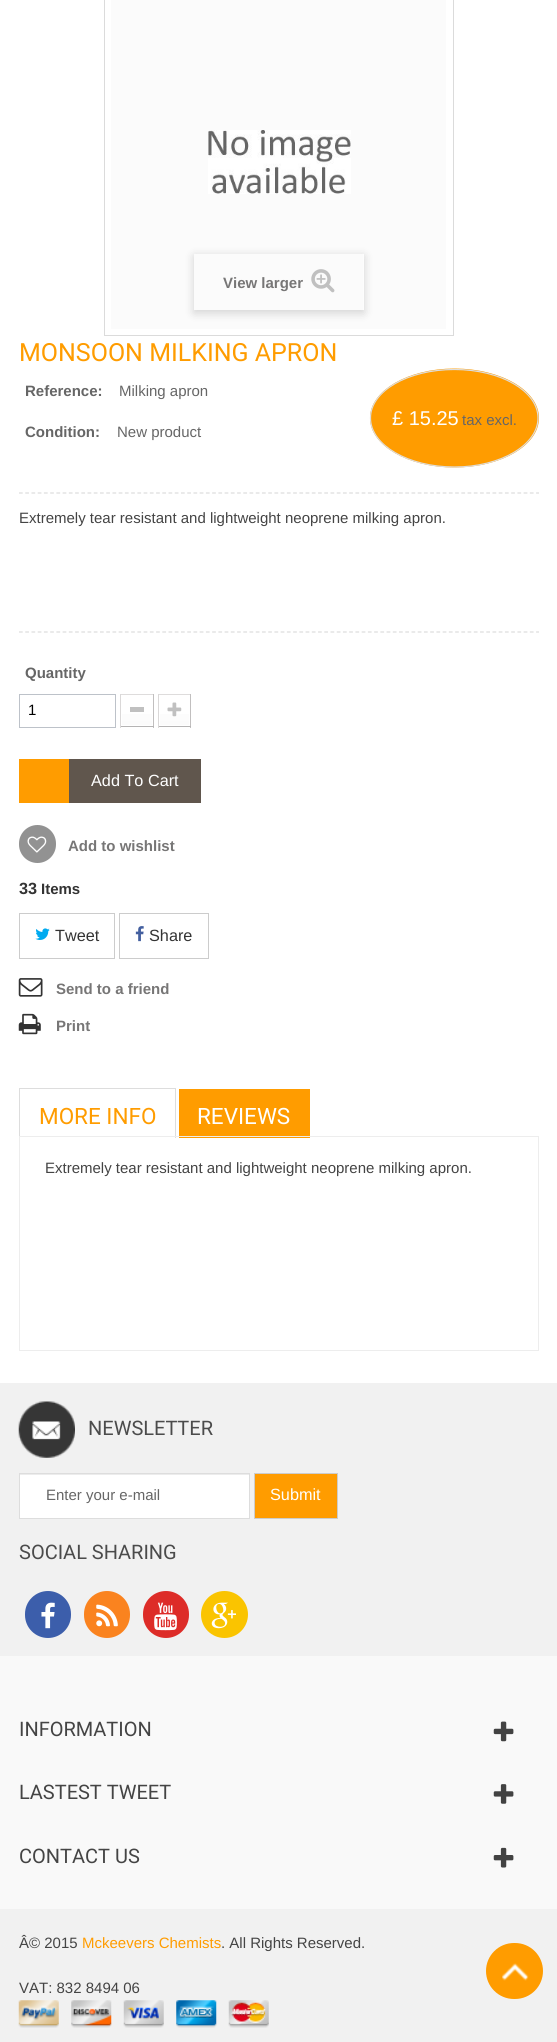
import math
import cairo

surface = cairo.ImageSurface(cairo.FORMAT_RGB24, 557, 2042)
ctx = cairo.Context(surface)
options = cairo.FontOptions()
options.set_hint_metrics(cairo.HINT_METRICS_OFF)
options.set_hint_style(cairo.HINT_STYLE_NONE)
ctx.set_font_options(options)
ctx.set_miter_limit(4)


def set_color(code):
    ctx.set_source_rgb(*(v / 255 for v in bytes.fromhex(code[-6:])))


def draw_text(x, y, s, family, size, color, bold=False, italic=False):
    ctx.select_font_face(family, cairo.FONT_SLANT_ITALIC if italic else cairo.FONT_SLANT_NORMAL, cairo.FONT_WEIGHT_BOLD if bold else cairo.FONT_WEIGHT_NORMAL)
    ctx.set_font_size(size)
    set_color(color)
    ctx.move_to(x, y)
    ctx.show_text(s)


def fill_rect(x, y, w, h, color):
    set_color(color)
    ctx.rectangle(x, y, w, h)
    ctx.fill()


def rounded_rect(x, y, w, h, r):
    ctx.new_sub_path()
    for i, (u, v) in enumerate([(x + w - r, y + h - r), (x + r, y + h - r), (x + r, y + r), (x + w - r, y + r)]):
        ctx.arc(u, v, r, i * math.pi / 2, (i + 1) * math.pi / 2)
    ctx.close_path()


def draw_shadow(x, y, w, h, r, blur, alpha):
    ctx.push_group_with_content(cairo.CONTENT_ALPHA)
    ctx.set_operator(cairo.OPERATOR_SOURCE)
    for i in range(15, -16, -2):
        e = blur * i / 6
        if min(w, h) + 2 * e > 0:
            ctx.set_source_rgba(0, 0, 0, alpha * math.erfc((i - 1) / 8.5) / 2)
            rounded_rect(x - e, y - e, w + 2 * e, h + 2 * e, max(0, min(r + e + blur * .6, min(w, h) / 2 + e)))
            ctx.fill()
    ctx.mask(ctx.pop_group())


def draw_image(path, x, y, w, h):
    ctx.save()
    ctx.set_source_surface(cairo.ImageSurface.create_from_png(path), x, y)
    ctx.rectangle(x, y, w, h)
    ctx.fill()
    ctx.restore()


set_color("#f1f1f1")
ctx.paint()
fill_rect(0, 0, 557, 1383, "#ffffff")
ctx.rectangle(104.5, -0.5, 349, 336)
set_color("#dbdbdb")
ctx.set_line_width(1)
ctx.stroke()
fill_rect(111, 0, 335, 329, "#fbfbfb")
draw_image("assets/img1.png", 208, 130, 143, 64)
ctx.save()
ctx.set_fill_rule(cairo.FILL_RULE_EVEN_ODD)
ctx.new_path()
ctx.move_to(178, 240)
ctx.line_to(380, 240)
ctx.line_to(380, 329)
ctx.line_to(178, 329)
ctx.close_path()
ctx.move_to(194, 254)
ctx.line_to(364, 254)
ctx.line_to(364, 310)
ctx.line_to(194, 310)
ctx.close_path()
ctx.clip()
set_color("#000000")
draw_shadow(194, 256, 170, 57, 0, 5, 0.16)
ctx.restore()
ctx.set_source_rgba(1, 1, 1, 0.5)
ctx.rectangle(363, 254, 1, 56)
ctx.fill()
draw_text(223, 288, "View larger", "Liberation Sans", 15, "#777676", bold=True)
draw_image("assets/img2.png", 311, 269, 24, 24)
draw_text(19, 361, "MONSOON MILKING APRON", "Roboto", 25, "#ff9c00")
draw_text(25, 396, "Reference:", "Liberation Sans", 15, "#666666", bold=True)
draw_text(119, 396, "Milking apron", "Liberation Sans", 15, "#666666")
set_color("#ff9c00")
ctx.new_path()
ctx.move_to(454.5, 368.5)
ctx.curve_to(501, 368.5, 539, 390.5, 539, 418)
ctx.curve_to(539, 445.5, 501, 467.5, 454.5, 467.5)
ctx.curve_to(408, 467.5, 370, 445.5, 370, 418)
ctx.curve_to(370, 390.5, 408, 368.5, 454.5, 368.5)
ctx.close_path()
ctx.fill()
ctx.new_path()
ctx.move_to(454.5, 369.5)
ctx.curve_to(500.5, 369.5, 538, 391, 538, 418)
ctx.curve_to(538, 445, 500.5, 467, 454.5, 467)
ctx.curve_to(408, 467, 370.5, 445, 370.5, 418)
ctx.curve_to(370.5, 391, 408, 369.5, 454.5, 369.5)
ctx.close_path()
set_color("#dddddd")
ctx.set_line_width(1.2)
ctx.stroke()
draw_text(392, 425, "£ 15.25", "Liberation Sans", 20, "#ffffff")
draw_text(462, 425, "tax excl.", "Liberation Sans", 15, "#666666")
draw_text(25, 437, "Condition:", "Liberation Sans", 15, "#666666", bold=True)
draw_text(117, 437, "New product", "Liberation Sans", 15, "#666666")
ctx.new_path()
ctx.move_to(19, 493)
ctx.line_to(539, 493)
set_color("#dddddd")
ctx.set_dash([3.75, 2.48])
ctx.stroke()
ctx.new_path()
ctx.move_to(19, 632)
ctx.line_to(539, 632)
ctx.stroke()
draw_text(19, 523, "Extremely tear resistant and lightweight neoprene milking apron.", "Liberation Sans", 15, "#444444")
draw_text(25, 678, "Quantity", "Liberation Sans", 15, "#666666", bold=True)
ctx.rectangle(19.5, 694.5, 96, 33)
set_color("#bdc2c9")
ctx.set_line_width(1)
ctx.set_dash([])
ctx.stroke()
draw_text(28, 715, "1", "Liberation Sans", 15, "#000000")
fill_rect(120, 694, 34, 1, "#dedcdc")
fill_rect(153, 694, 1, 34, "#c1bfbf")
fill_rect(120, 726, 34, 1, "#b5b4b4")
fill_rect(120, 694, 1, 34, "#dad8d8")
gradient = cairo.LinearGradient(137, 696, 137, 725)
gradient.add_color_stop_rgba(0, 1, 1, 1, 1)
gradient.add_color_stop_rgba(1, 0.984, 0.984, 0.984, 1)
ctx.set_source(gradient)
ctx.rectangle(122, 714, 30, 11)
ctx.fill()
fill_rect(130, 707, 14, 5, "#c0c0c0")
fill_rect(158, 694, 33, 1, "#dedcdc")
fill_rect(190, 694, 1, 34, "#c1bfbf")
fill_rect(158, 726, 33, 1, "#b5b4b4")
fill_rect(158, 694, 1, 34, "#dad8d8")
gradient = cairo.LinearGradient(174, 696, 174, 725)
gradient.add_color_stop_rgba(0, 1, 1, 1, 1)
gradient.add_color_stop_rgba(1, 0.984, 0.984, 0.984, 1)
ctx.set_source(gradient)
ctx.rectangle(160, 714, 29, 11)
ctx.fill()
draw_image("assets/img3.png", 167, 702, 15, 15)
fill_rect(19, 759, 50, 44, "#ff9c00")
fill_rect(69, 759, 132, 44, "#60564d")
draw_text(91, 786, "Add To Cart", "Liberation Sans", 16.25, "#ffffff")
set_color("#929292")
rounded_rect(19, 825, 37, 38, 18.5)
ctx.fill()
draw_image("assets/img4.png", 27, 836, 20, 17)
draw_text(68, 851, "Add to wishlist", "Liberation Sans", 15, "#777676", bold=True)
draw_text(19, 894, "33", "Liberation Sans", 16.25, "#333333", bold=True)
draw_text(41, 894, "Items", "Liberation Sans", 15, "#333333", bold=True)
ctx.rectangle(19.5, 913.5, 95, 45)
set_color("#cccccc")
ctx.stroke()
draw_image("assets/img5.png", 35, 928, 15, 12)
draw_text(55, 941, "Tweet", "Liberation Sans", 16.25, "#333333")
ctx.rectangle(119.5, 913.5, 89, 45)
set_color("#cccccc")
ctx.stroke()
draw_image("assets/img6.png", 135, 926, 9, 16)
draw_text(149, 941, "Share", "Liberation Sans", 16.25, "#333333")
draw_image("assets/img7.png", 18, 978, 25, 19)
draw_text(56, 994, "Send to a friend", "Liberation Sans", 15, "#777676", bold=True)
draw_image("assets/img8.png", 18, 1013, 23, 22)
draw_text(56, 1031, "Print", "Liberation Sans", 15, "#777676", bold=True)
fill_rect(19, 1088, 157, 1, "#dddddd")
fill_rect(175, 1088, 1, 50, "#dddddd")
fill_rect(19, 1088, 1, 50, "#dddddd")
draw_text(39, 1124, "MORE INFO", "Roboto", 22.5, "#ff9c00")
fill_rect(179, 1089, 131, 49, "#ff9c00")
draw_text(197, 1124, "REVIEWS", "Roboto", 22.5, "#ffffff")
ctx.rectangle(19.5, 1136.5, 519, 214)
set_color("#ededed")
ctx.stroke()
draw_text(45, 1173, "Extremely tear resistant and lightweight neoprene milking apron.", "Liberation Sans", 15, "#444444")
draw_image("assets/img9.png", 18, 1401, 57, 57)
draw_text(88, 1435, "NEWSLETTER", "Roboto", 20, "#4b4b4b")
fill_rect(20, 1475, 229, 43, "#ffffff")
fill_rect(20, 1474, 229, 1, "#ececec")
ctx.rectangle(19.5, 1473.5, 230, 45)
set_color("#dddddd")
ctx.stroke()
draw_text(46, 1500, "Enter your e-mail", "Liberation Sans", 15, "#666666")
set_color("#ff9c00")
ctx.rectangle(254.5, 1473.5, 83, 45)
ctx.fill_preserve()
set_color("#cccccc")
ctx.stroke()
draw_text(270, 1500, "Submit", "Liberation Sans", 16.25, "#ffffff")
draw_text(19, 1559, "SOCIAL SHARING", "Roboto", 20, "#4b4b4b")
set_color("#3c5eab")
rounded_rect(25, 1591, 46, 47, 23)
ctx.fill()
draw_image("assets/img10.png", 41, 1602, 14, 27)
set_color("#fa831f")
rounded_rect(84, 1591, 46, 47, 23)
ctx.fill()
draw_image("assets/img11.png", 96, 1604, 22, 23)
set_color("#dd2c28")
rounded_rect(143, 1591, 46, 47, 23)
ctx.fill()
draw_image("assets/img12.png", 154, 1602, 23, 29)
set_color("#fac400")
ctx.arc(224.5, 1614.5, 23.5, 0, 2 * math.pi)
ctx.fill()
draw_image("assets/img13.png", 211, 1602, 25, 27)
fill_rect(0, 1656, 557, 253, "#f9f9f9")
draw_text(19, 1736, "INFORMATION", "Roboto", 20, "#444444")
draw_image("assets/img14.png", 493, 1721, 21, 21)
draw_text(19, 1799, "LASTEST TWEET", "Roboto", 20, "#444444")
draw_image("assets/img15.png", 493, 1784, 21, 20)
draw_text(19, 1863, "CONTACT US", "Roboto", 20, "#444444")
draw_image("assets/img16.png", 493, 1847, 21, 21)
draw_text(19, 1948, "Â© 2015", "Liberation Sans", 15, "#444444")
draw_text(82, 1948, "Mckeevers Chemists", "Liberation Sans", 15, "#ff9c00")
draw_text(221, 1948, ". All Rights Reserved.", "Liberation Sans", 15, "#444444")
draw_text(19, 1993, "VAT: 832 8494 06", "Liberation Sans", 15, "#444444")
draw_image("assets/img17.png", 18, 2000, 41, 28)
draw_image("assets/img18.png", 71, 2000, 41, 28)
draw_image("assets/img19.png", 123, 2000, 41, 28)
draw_image("assets/img20.png", 176, 2000, 41, 28)
draw_image("assets/img21.png", 228, 2000, 41, 28)
set_color("#ff9c00")
rounded_rect(486, 1943, 57, 56, 28)
ctx.fill()
draw_image("assets/img22.png", 502, 1963, 27, 18)
surface.write_to_png("output.png")
